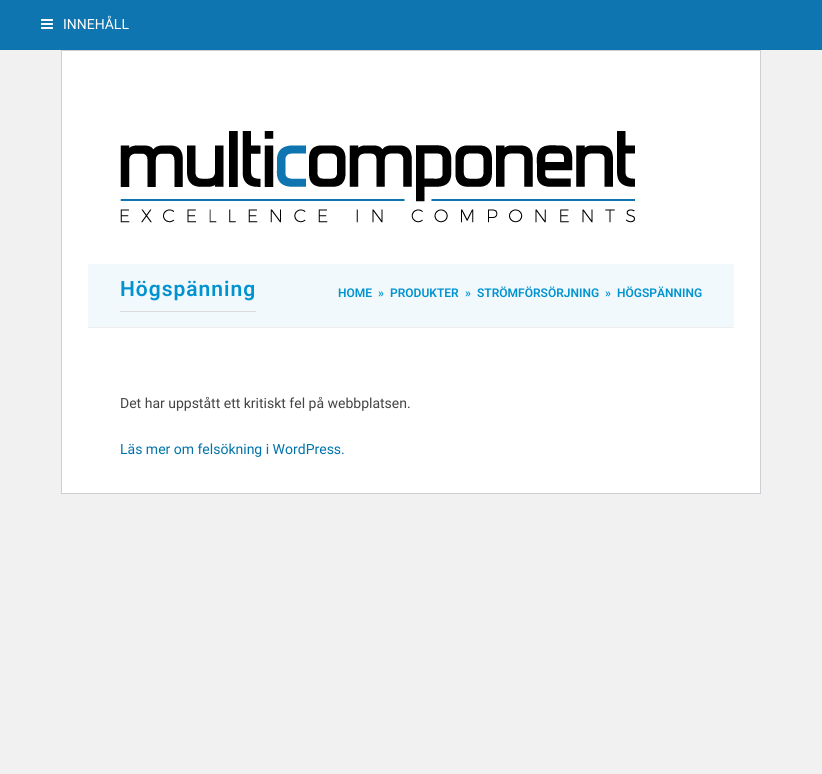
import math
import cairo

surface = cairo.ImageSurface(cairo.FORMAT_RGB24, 822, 774)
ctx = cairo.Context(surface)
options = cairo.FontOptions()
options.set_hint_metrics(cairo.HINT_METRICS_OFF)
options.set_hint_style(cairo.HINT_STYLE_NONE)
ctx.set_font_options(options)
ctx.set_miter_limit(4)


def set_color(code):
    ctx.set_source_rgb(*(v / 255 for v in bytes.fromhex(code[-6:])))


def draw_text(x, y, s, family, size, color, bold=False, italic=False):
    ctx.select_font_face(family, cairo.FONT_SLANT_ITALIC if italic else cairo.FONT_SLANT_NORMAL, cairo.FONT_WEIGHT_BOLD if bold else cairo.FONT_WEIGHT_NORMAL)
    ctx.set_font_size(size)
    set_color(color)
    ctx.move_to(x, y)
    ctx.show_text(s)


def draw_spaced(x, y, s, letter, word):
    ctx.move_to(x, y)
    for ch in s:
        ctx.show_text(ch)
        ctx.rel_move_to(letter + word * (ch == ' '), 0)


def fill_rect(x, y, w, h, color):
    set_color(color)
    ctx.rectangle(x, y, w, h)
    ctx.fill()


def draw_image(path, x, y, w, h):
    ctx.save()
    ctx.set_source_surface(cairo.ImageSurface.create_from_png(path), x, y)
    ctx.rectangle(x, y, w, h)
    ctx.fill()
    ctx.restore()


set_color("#f1f1f1")
ctx.paint()
set_color("#ffffff")
ctx.rectangle(61.5, 50.5, 699, 443)
ctx.fill_preserve()
set_color("#ccd0d4")
ctx.set_line_width(1)
ctx.stroke()
fill_rect(0, 0, 822, 50, "#0e75b0")
draw_image("assets/img1.png", 41, 19, 12, 10)
draw_text(63, 29, "INNEHÅLL", "Roboto", 14, "#ffffff")
draw_image("assets/img2.png", 120, 131, 515, 92)
fill_rect(88, 264, 646, 63, "#f2f9fd")
fill_rect(88, 327, 646, 1, "#eeeeee")
fill_rect(120, 311, 136, 1, "#dadada")
ctx.select_font_face("Roboto SemiBold")
ctx.set_font_size(21)
set_color("#0093d0")
draw_spaced(120, 296, "Högspänning", 1, 0)
draw_text(338, 297, "HOME", "Roboto SemiBold", 12, "#0093d0")
draw_text(378, 297, "»", "Roboto SemiBold", 12, "#0093d0")
draw_text(390, 297, "PRODUKTER", "Roboto SemiBold", 12, "#0093d0")
draw_text(465, 297, "»", "Roboto SemiBold", 12, "#0093d0")
draw_text(477, 297, "STRÖMFÖRSÖRJNING", "Roboto SemiBold", 12, "#0093d0")
draw_text(605, 297, "»", "Roboto SemiBold", 12, "#0093d0")
draw_text(617, 297, "HÖGSPÄNNING", "Roboto SemiBold", 12, "#0093d0")
draw_text(120, 408, "Det har uppstått ett kritiskt fel på webbplatsen.", "Roboto", 14, "#444444")
draw_text(120, 454, "Läs mer om felsökning i WordPress.", "Roboto", 14, "#0073aa")
surface.write_to_png("output.png")
